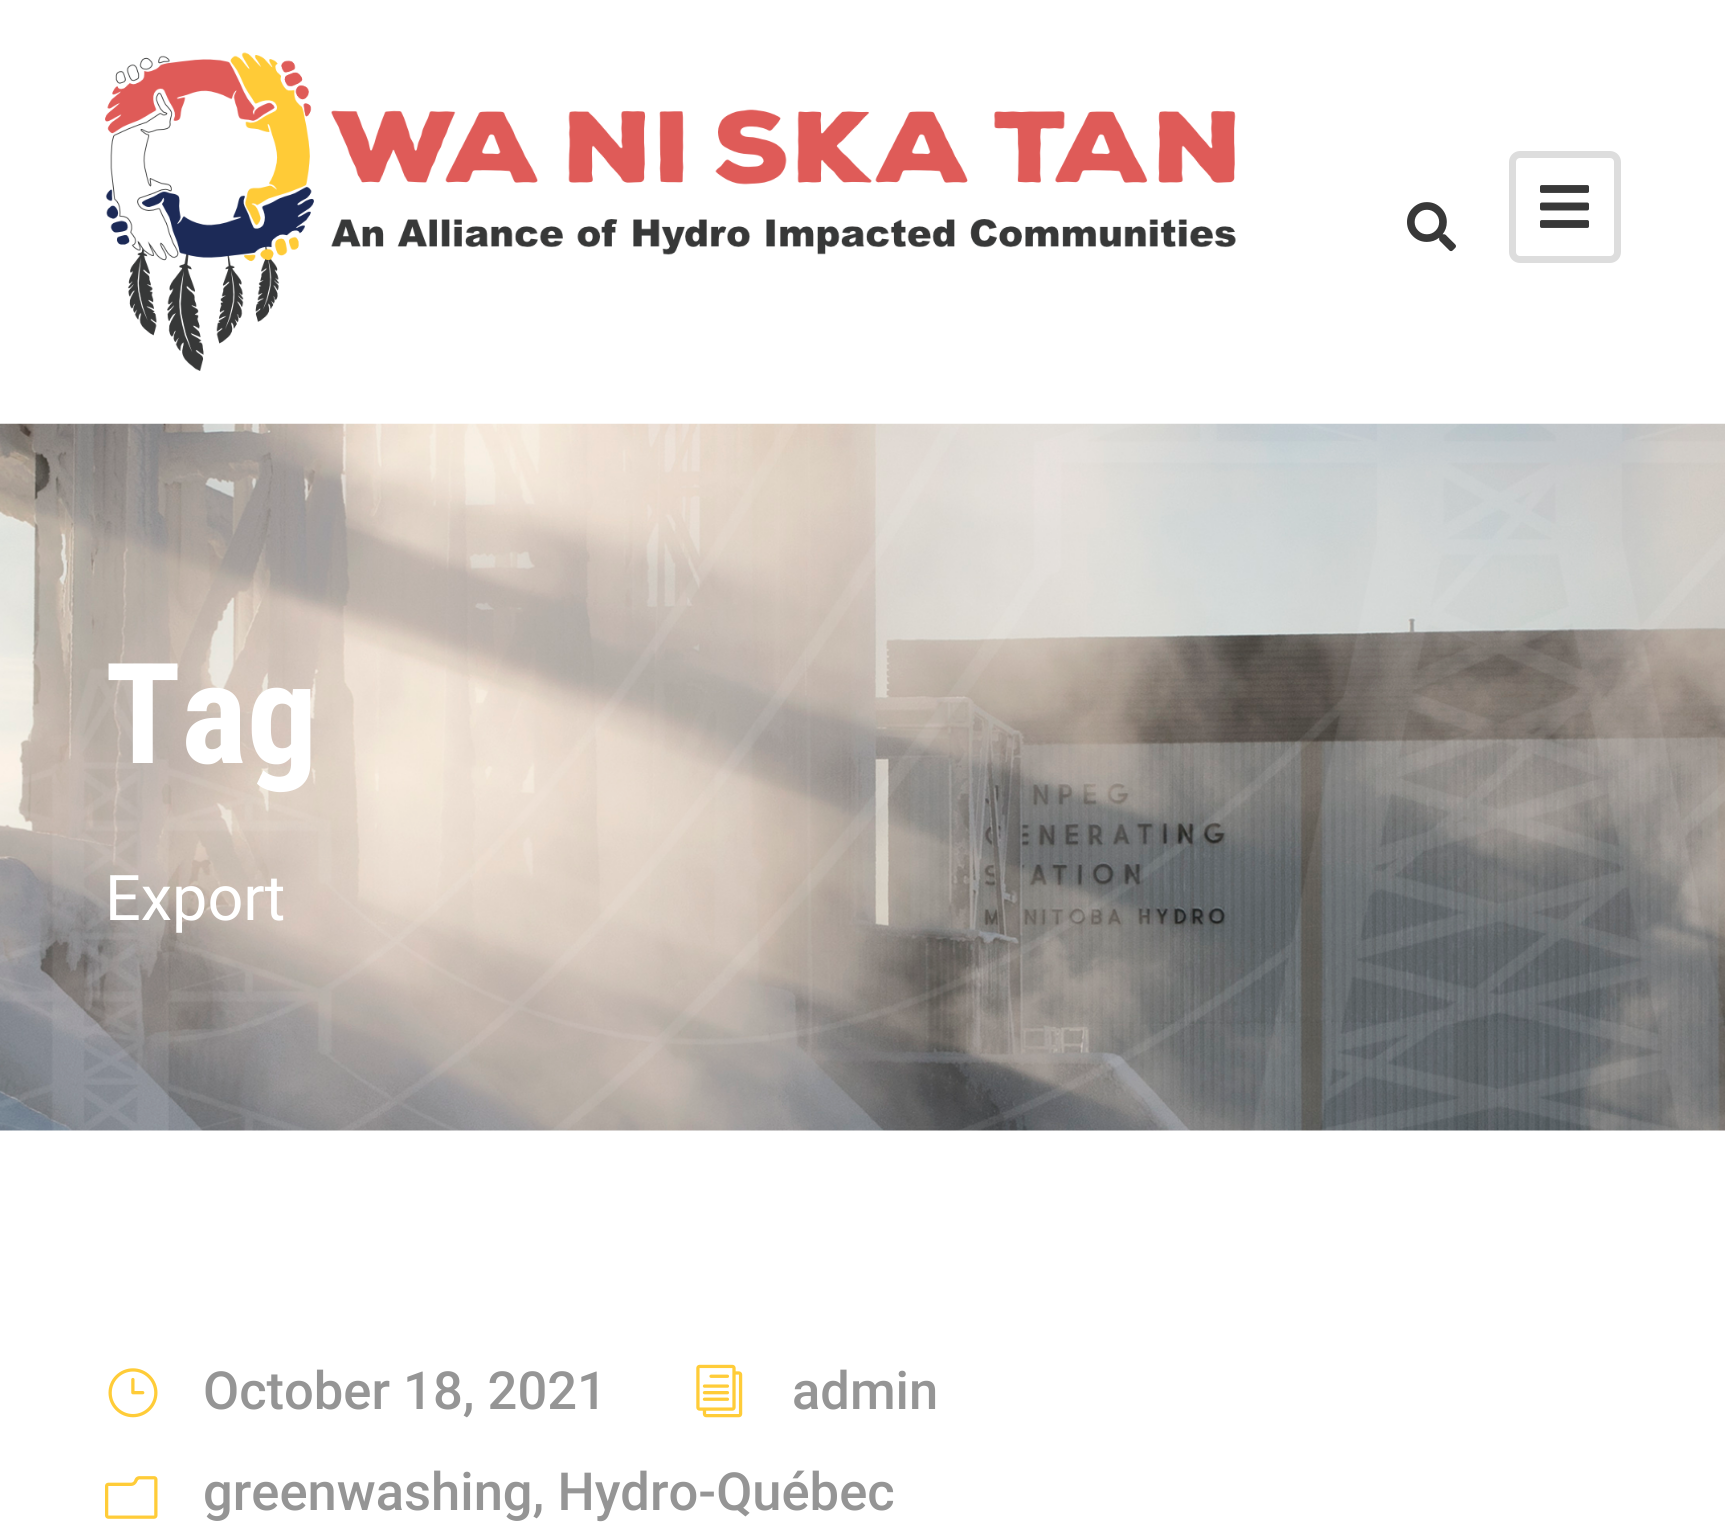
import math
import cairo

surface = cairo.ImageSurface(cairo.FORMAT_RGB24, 1725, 1535)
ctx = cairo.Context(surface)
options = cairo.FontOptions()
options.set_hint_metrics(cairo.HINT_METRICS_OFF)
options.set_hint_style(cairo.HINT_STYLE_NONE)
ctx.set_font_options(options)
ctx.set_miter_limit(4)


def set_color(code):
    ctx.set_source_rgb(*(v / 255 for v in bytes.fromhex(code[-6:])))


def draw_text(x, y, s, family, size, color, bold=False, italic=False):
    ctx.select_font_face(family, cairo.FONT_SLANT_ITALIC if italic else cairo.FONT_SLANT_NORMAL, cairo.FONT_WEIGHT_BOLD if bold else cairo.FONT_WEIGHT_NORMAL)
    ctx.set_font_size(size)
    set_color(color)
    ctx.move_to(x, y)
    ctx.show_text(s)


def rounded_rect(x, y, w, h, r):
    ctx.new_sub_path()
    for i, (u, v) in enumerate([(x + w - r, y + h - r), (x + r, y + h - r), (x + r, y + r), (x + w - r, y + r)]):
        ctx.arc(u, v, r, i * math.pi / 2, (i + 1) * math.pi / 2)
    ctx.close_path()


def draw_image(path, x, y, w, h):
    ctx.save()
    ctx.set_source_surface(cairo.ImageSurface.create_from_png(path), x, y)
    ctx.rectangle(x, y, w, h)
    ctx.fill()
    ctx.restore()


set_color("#ffffff")
ctx.paint()
draw_image("assets/img1.png", 105, 52, 1131, 319)
draw_image("assets/img2.png", 1407, 202, 49, 50)
rounded_rect(1512.5, 154.5, 105, 105, 7.5)
set_color("#dddddd")
ctx.set_line_width(7)
ctx.stroke()
draw_image("assets/img3.png", 1540, 185, 49, 43)
draw_image("assets/img4.png", 0, 423, 1725, 708)
draw_text(105, 763, "Tag", "Roboto Condensed", 140, "#ffffff", bold=True)
draw_text(105, 920, "Export", "Roboto", 63, "#ffffff")
draw_image("assets/img5.png", 108, 1368, 50, 50)
draw_text(203, 1409, "October 18, 2021", "Roboto Medium", 52.5, "#959595")
draw_image("assets/img6.png", 696, 1364, 47, 54)
draw_text(792, 1409, "admin", "Roboto Medium", 52.5, "#959595")
draw_image("assets/img7.png", 105, 1476, 53, 43)
draw_text(203, 1510, "greenwashing, Hydro-Québec", "Roboto Medium", 52.5, "#959595")
surface.write_to_png("output.png")
